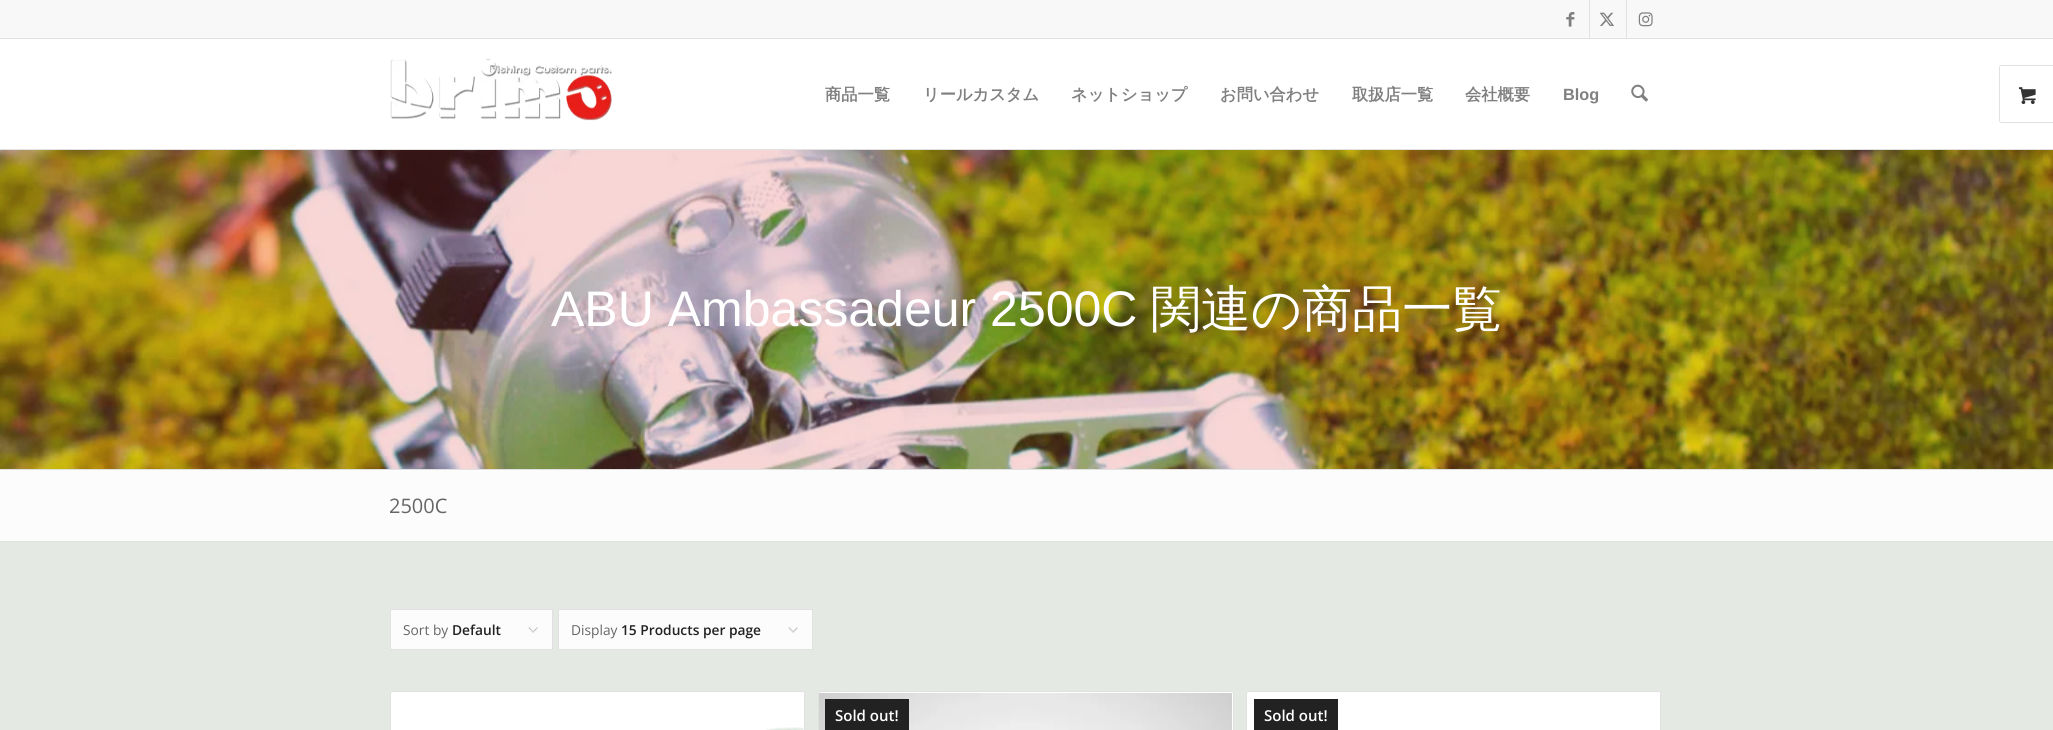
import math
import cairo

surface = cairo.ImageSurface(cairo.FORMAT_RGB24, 2053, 730)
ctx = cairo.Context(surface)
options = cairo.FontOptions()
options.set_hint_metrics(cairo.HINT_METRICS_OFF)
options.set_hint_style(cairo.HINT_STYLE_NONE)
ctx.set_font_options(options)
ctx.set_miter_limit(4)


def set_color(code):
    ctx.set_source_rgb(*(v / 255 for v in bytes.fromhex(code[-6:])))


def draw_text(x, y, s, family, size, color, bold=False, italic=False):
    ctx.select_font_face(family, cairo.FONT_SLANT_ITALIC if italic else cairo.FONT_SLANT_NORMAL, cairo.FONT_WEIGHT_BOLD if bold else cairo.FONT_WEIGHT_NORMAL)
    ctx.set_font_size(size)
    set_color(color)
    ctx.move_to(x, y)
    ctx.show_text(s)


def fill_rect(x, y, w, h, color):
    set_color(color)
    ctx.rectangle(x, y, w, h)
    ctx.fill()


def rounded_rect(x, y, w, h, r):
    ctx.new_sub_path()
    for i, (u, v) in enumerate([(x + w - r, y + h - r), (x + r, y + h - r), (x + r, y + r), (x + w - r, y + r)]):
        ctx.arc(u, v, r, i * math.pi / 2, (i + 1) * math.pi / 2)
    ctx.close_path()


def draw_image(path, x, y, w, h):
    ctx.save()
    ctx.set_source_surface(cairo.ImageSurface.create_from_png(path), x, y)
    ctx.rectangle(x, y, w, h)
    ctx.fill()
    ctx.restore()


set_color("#ffffff")
ctx.paint()
fill_rect(0, 0, 2053, 38, "#f8f8f8")
fill_rect(0, 38, 2053, 1, "#e1e1e1")
fill_rect(1589, 0, 1, 38, "#e1e1e1")
draw_image("assets/img1.png", 1566, 12, 9, 15)
fill_rect(1626, 0, 1, 38, "#e1e1e1")
draw_image("assets/img2.png", 1599, 12, 15, 14)
draw_image("assets/img3.png", 1638, 12, 15, 15)
fill_rect(0, 149, 2053, 1, "#e1e1e1")
draw_image("assets/img4.png", 390, 59, 222, 62)
draw_text(825, 100, "商品一覧", "WenQuanYi Zen Hei", 16.25, "#808080", bold=True)
draw_text(923, 100, "リールカスタム", "WenQuanYi Zen Hei", 16.25, "#808080", bold=True)
draw_text(1071, 100, "ネットショップ", "WenQuanYi Zen Hei", 16.25, "#808080", bold=True)
draw_text(1220, 100, "お問い合わせ", "WenQuanYi Zen Hei", 16.25, "#808080", bold=True)
draw_text(1352, 100, "取扱店一覧", "WenQuanYi Zen Hei", 16.25, "#808080", bold=True)
draw_text(1465, 100, "会社概要", "WenQuanYi Zen Hei", 16.25, "#808080", bold=True)
draw_text(1563, 100, "Blog", "Liberation Sans", 16.25, "#808080", bold=True)
draw_image("assets/img5.png", 1631, 84, 17, 18)
rounded_rect(1999.5, 65.5, 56, 57, 2)
set_color("#e1e1e1")
ctx.set_line_width(1)
ctx.stroke()
fill_rect(2000, 66, 1, 1, "#ffffff")
draw_image("assets/img6.png", 2019, 87, 17, 17)
draw_image("assets/img7.png", 0, 150, 2053, 319)
draw_text(551, 326, "ABU Ambassadeur 2500C", "Liberation Sans", 50, "#ffffff")
draw_text(1151, 326, "関連の商品一覧", "WenQuanYi Zen Hei Medium", 50, "#ffffff")
fill_rect(0, 470, 2053, 71, "#fcfcfc")
fill_rect(0, 469, 2053, 1, "#e1e1e1")
draw_text(389, 513, "2500C", "Open Sans", 20, "#666666")
fill_rect(0, 542, 2053, 188, "#e4e9e3")
fill_rect(0, 541, 2053, 1, "#e1e1e1")
fill_rect(391, 610, 161, 39, "#fcfcfc")
draw_image("assets/img8.png", 528, 627, 10, 6)
ctx.rectangle(390.5, 609.5, 162, 40)
set_color("#e1e1e1")
ctx.stroke()
draw_text(403, 635, "Sort by", "Open Sans", 13.75, "#666666")
draw_text(452, 635, "Default", "Open Sans SemiBold", 13.75, "#222222")
fill_rect(559, 610, 253, 39, "#fcfcfc")
draw_image("assets/img8.png", 788, 627, 10, 6)
ctx.rectangle(558.5, 609.5, 254, 40)
set_color("#e1e1e1")
ctx.stroke()
draw_text(571, 635, "Display", "Open Sans", 13.75, "#666666")
draw_text(621, 635, "15 Products per page", "Open Sans SemiBold", 13.75, "#222222")
set_color("#ffffff")
rounded_rect(390.5, 691.5, 414, 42, 2)
ctx.fill_preserve()
set_color("#e1e1e1")
ctx.stroke()
draw_image("assets/img9.png", 766, 727, 38, 3)
set_color("#ffffff")
rounded_rect(818.5, 691.5, 415, 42, 2)
ctx.fill_preserve()
set_color("#e1e1e1")
ctx.stroke()
draw_image("assets/img10.png", 819, 693, 413, 37)
fill_rect(825, 699, 84, 31, "#222222")
draw_text(835, 721, "Sold out!", "Open Sans SemiBold", 15, "#ffffff")
rounded_rect(1246.5, 691.5, 414, 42, 2)
ctx.fill_preserve()
set_color("#e1e1e1")
ctx.stroke()
fill_rect(1254, 699, 84, 31, "#222222")
draw_text(1264, 721, "Sold out!", "Open Sans SemiBold", 15, "#ffffff")
surface.write_to_png("output.png")
